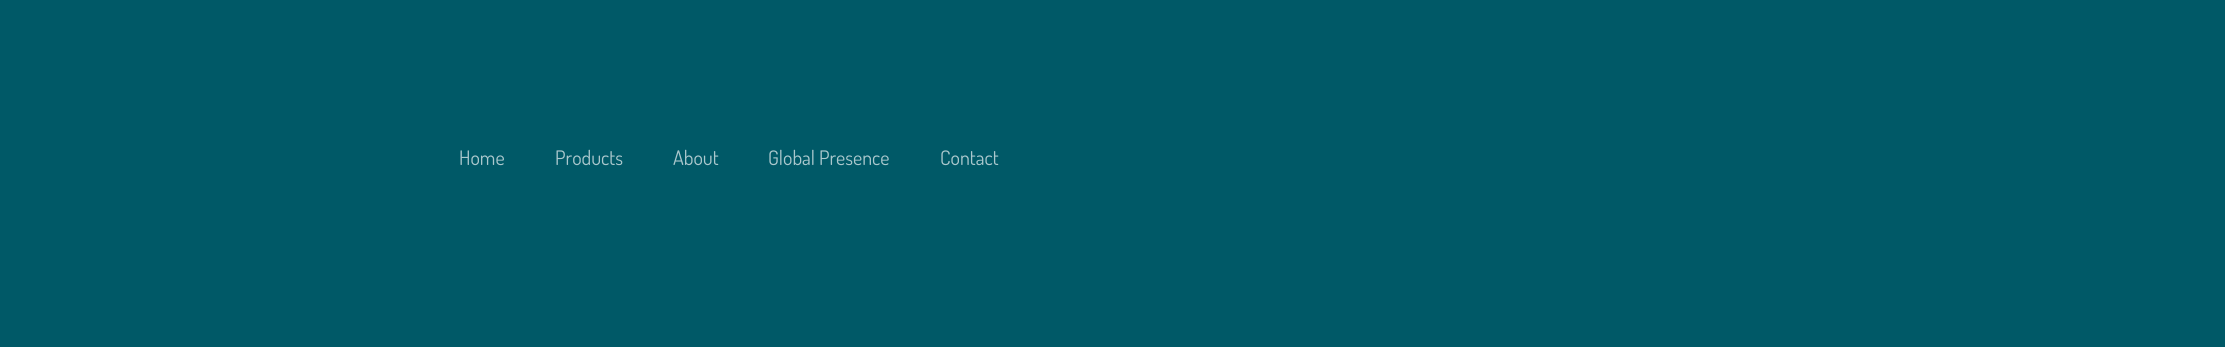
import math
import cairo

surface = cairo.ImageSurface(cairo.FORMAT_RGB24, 2225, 347)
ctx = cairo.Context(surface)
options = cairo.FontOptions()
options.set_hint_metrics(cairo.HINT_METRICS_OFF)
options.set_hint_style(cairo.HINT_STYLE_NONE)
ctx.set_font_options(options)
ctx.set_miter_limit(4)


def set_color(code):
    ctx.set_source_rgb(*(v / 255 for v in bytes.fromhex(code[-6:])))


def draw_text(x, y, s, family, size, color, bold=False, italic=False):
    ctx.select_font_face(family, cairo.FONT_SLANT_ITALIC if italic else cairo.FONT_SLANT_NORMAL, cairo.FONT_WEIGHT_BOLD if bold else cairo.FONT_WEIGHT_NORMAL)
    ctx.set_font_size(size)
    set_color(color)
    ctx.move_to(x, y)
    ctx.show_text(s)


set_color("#005967")
ctx.paint()
draw_text(459, 165, "Home", "Dosis", 20, "#abc8cd")
draw_text(555, 165, "Products", "Dosis", 20, "#abc8cd")
draw_text(673, 165, "About", "Dosis", 20, "#abc8cd")
draw_text(768, 165, "Global Presence", "Dosis", 20, "#abc8cd")
draw_text(940, 165, "Contact", "Dosis", 20, "#abc8cd")
surface.write_to_png("output.png")
